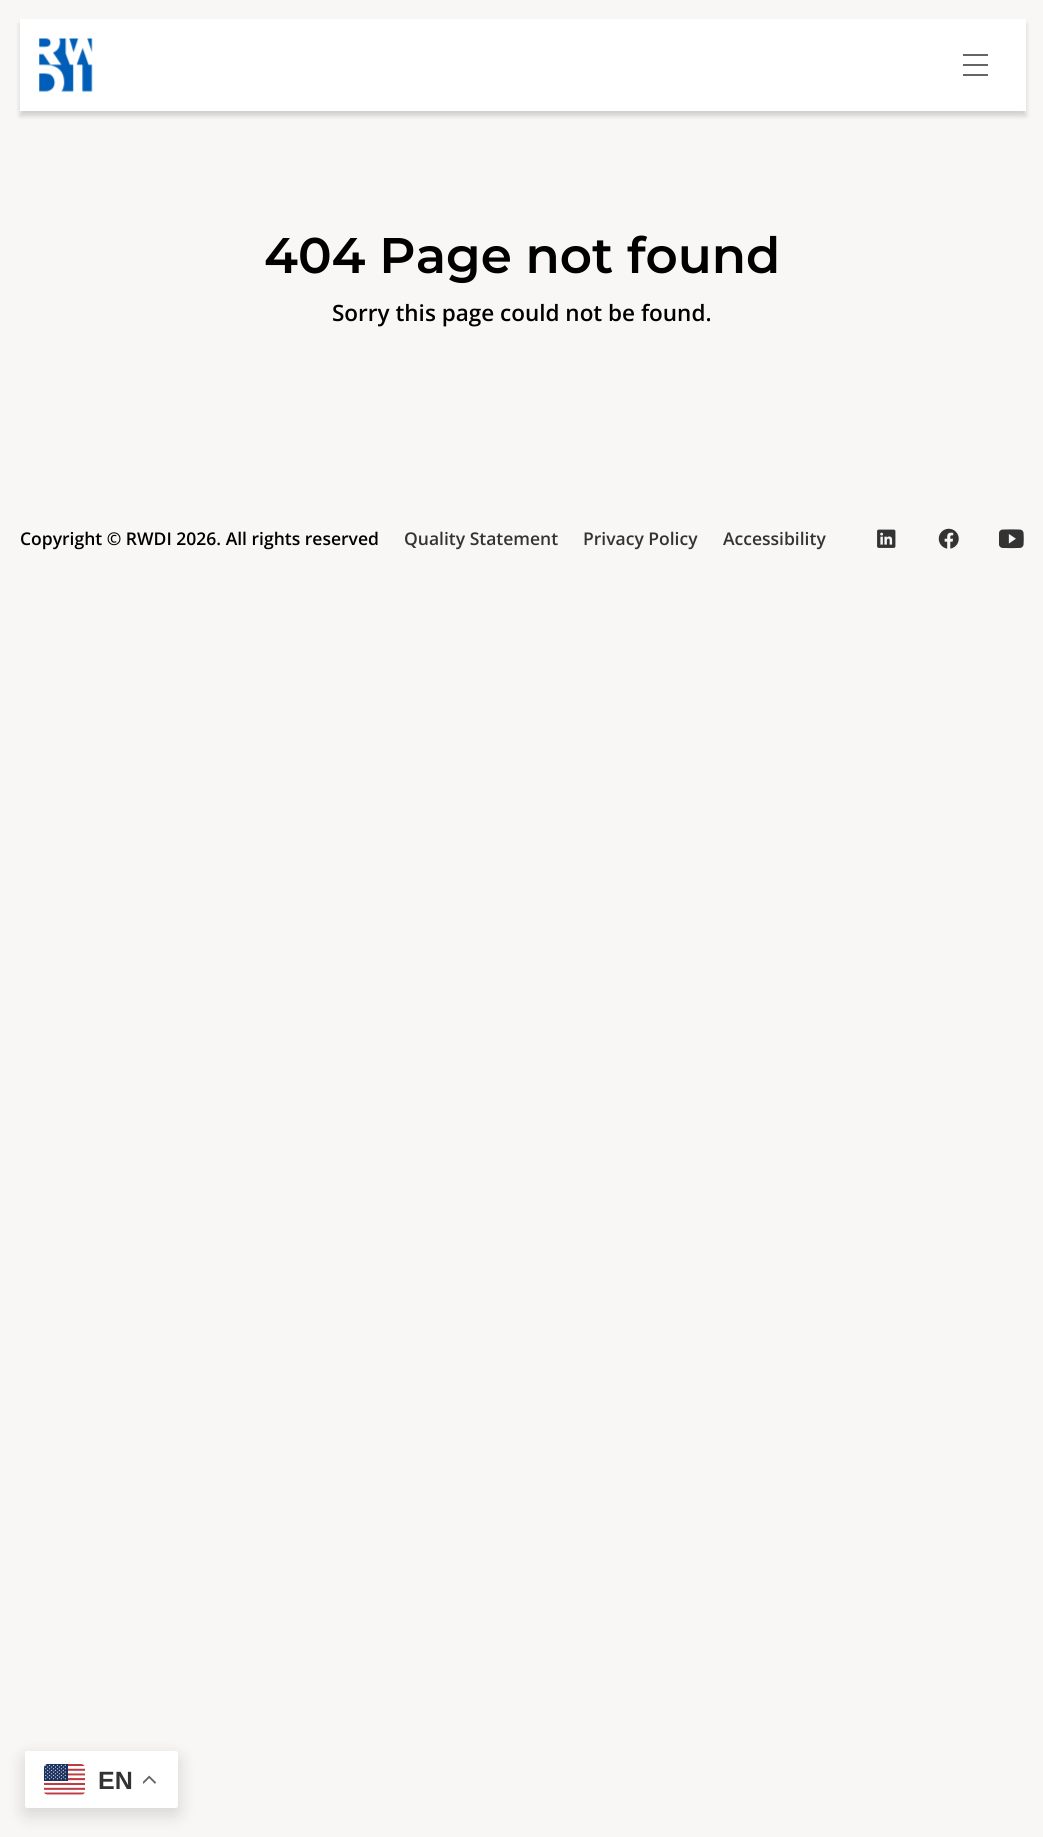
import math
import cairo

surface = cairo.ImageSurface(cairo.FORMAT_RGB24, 1043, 1837)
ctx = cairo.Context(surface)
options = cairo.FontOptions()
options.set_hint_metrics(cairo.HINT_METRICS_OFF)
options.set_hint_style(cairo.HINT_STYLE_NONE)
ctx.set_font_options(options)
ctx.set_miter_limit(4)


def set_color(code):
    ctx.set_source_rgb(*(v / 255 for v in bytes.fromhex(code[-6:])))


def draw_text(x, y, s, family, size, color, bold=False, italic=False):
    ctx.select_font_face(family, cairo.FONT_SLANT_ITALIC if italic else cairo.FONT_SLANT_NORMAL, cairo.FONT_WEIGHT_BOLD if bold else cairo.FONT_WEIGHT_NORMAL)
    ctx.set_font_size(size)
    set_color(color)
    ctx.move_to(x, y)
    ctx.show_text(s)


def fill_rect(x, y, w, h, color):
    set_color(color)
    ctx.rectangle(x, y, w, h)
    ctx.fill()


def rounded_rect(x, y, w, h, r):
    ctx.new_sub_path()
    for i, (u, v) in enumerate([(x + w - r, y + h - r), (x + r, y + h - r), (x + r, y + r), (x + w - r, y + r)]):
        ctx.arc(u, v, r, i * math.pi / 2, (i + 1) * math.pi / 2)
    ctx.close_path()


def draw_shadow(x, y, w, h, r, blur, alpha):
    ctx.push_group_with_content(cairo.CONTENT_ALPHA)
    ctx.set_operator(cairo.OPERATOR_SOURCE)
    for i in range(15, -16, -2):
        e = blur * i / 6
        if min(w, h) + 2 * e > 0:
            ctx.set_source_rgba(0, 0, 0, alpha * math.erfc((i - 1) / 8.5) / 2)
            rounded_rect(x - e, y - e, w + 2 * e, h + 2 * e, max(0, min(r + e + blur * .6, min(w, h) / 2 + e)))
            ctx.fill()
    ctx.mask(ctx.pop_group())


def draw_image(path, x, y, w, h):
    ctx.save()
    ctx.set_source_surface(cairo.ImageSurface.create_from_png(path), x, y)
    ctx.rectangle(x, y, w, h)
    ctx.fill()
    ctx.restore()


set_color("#f8f7f6")
ctx.paint()
set_color("#000000")
draw_shadow(20, 24, 1006, 92, 0, 2.5, 0.16)
fill_rect(20, 19, 1006, 92, "#ffffff")
draw_image("assets/img1.png", 39, 38, 54, 54)
ctx.new_path()
ctx.move_to(963, 55)
ctx.line_to(988, 55)
ctx.move_to(963, 65)
ctx.line_to(988, 65)
ctx.move_to(963, 75)
ctx.line_to(988, 75)
set_color("#000000")
ctx.set_line_width(1.2)
ctx.stroke()
draw_text(264, 273, "404 Page not found", "Montserrat SemiBold", 50, "#000000")
draw_text(332, 321, "Sorry this page could not be found.", "Open Sans SemiBold", 22.5, "#000000")
draw_text(20, 545, "Copyright © RWDI 2026. All rights reserved", "Open Sans SemiBold", 17.5, "#000000")
draw_text(404, 545, "Quality Statement", "Open Sans SemiBold", 17.5, "#333333")
draw_text(583, 545, "Privacy Policy", "Open Sans SemiBold", 17.5, "#333333")
draw_text(723, 545, "Accessibility", "Open Sans SemiBold", 17.5, "#333333")
draw_image("assets/img2.png", 877, 529, 19, 19)
draw_image("assets/img3.png", 938, 528, 21, 21)
draw_image("assets/img4.png", 999, 529, 25, 20)
set_color("#000000")
draw_shadow(25, 1758, 153, 56, 2.5, 9.5, 0.15)
set_color("#ffffff")
rounded_rect(25, 1751, 153, 57, 2.5)
ctx.fill()
draw_image("assets/img5.png", 44, 1764, 41, 31)
draw_text(98, 1789, "EN", "Liberation Sans", 25, "#333333", bold=True)
draw_image("assets/img6.png", 143, 1775, 13, 9)
surface.write_to_png("output.png")
